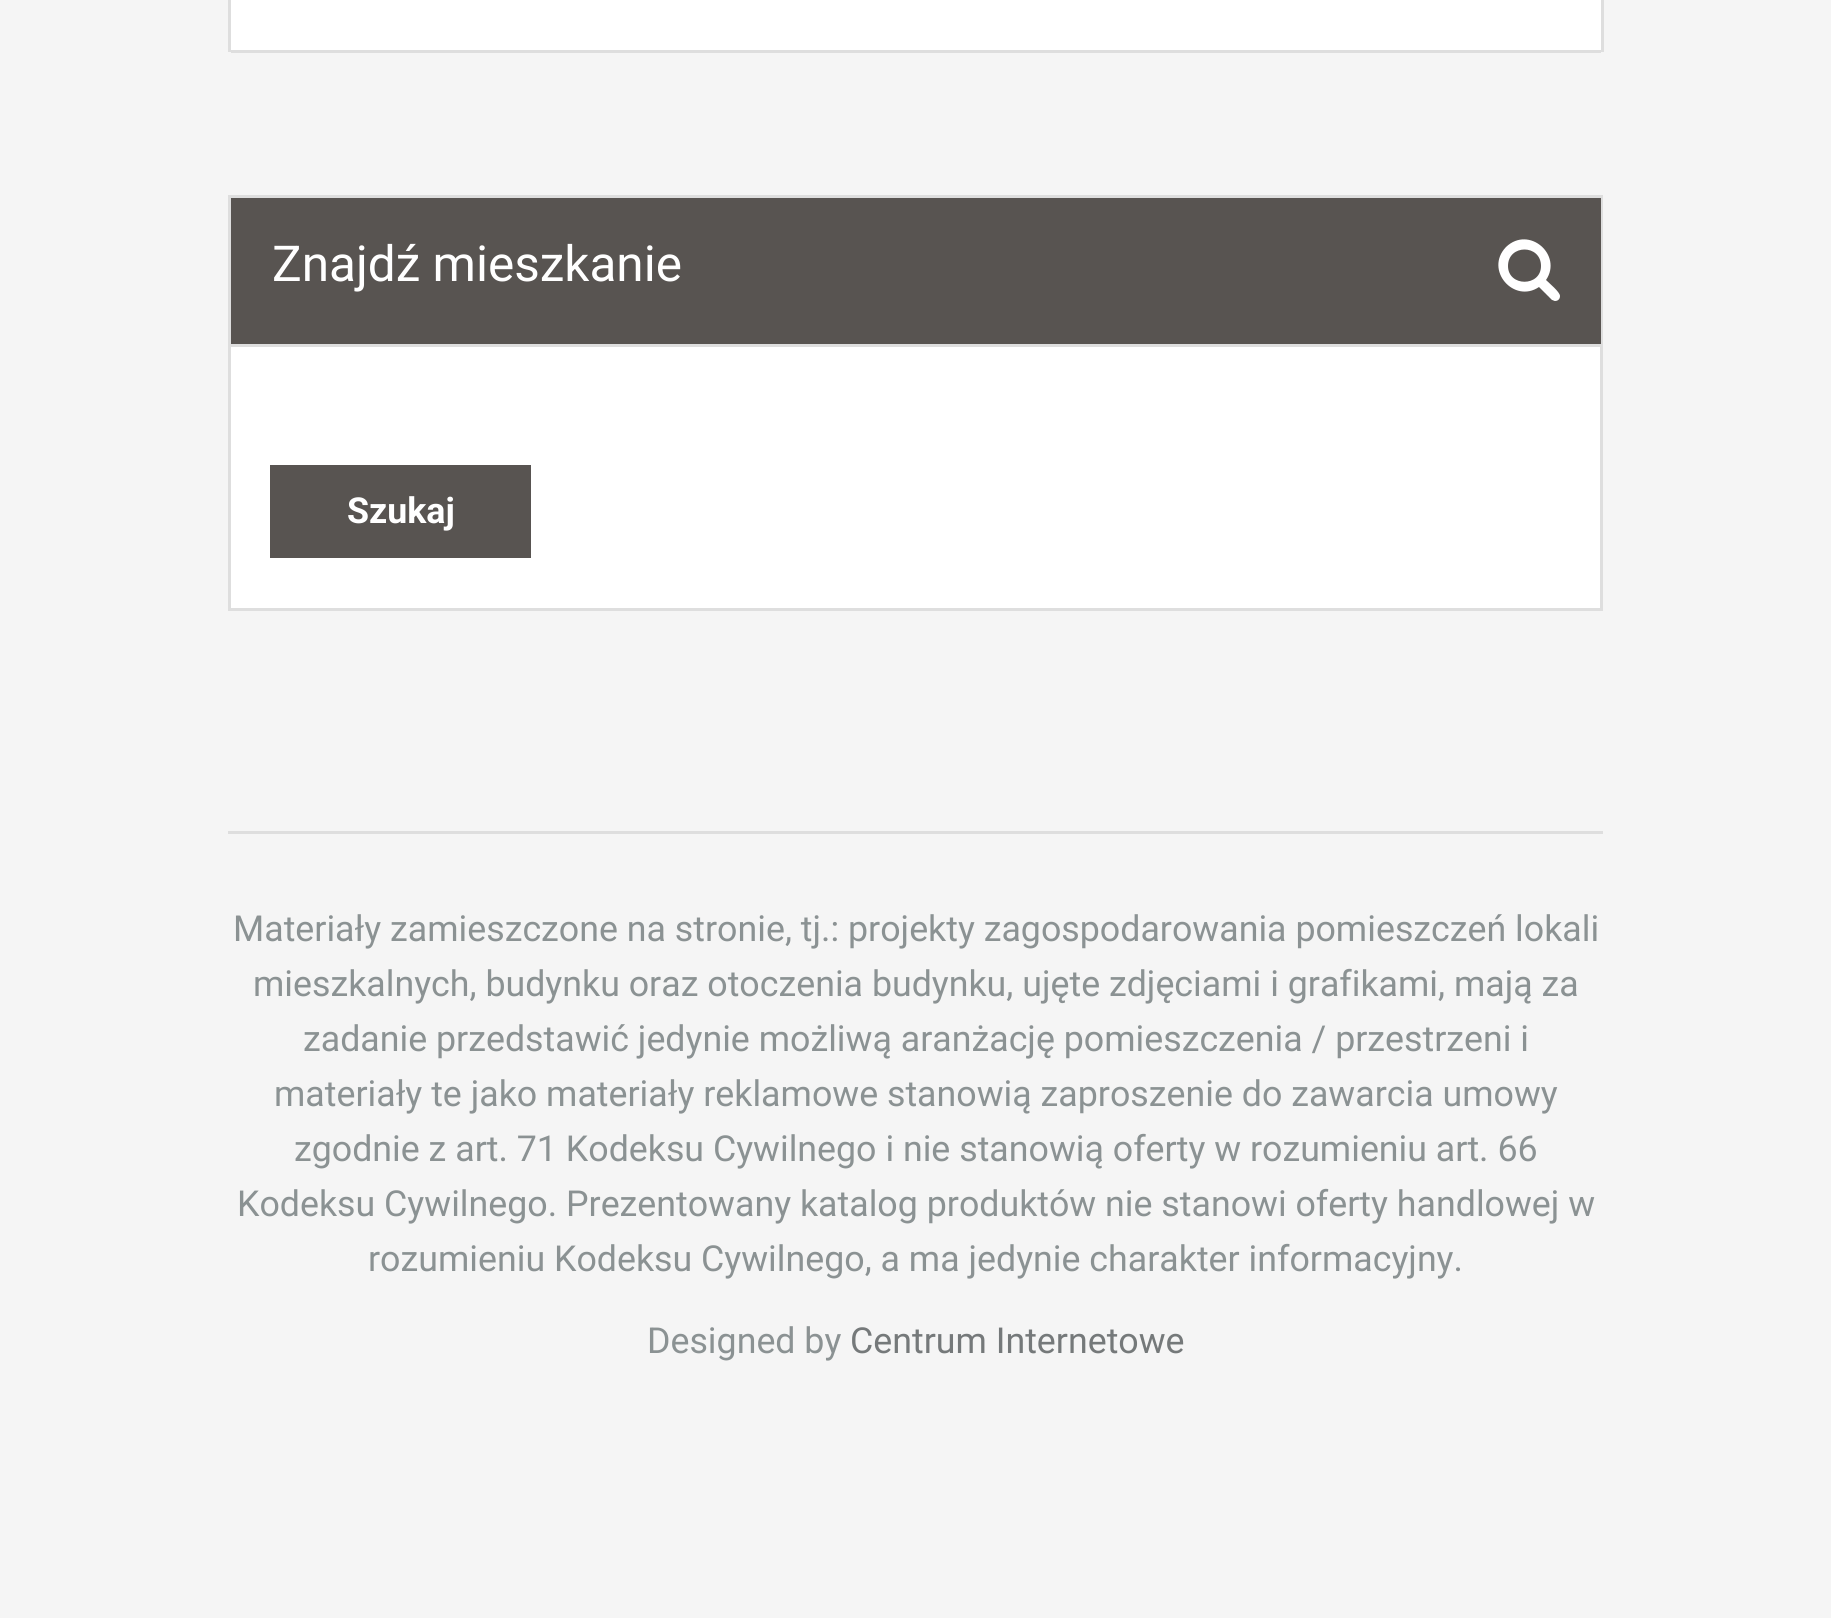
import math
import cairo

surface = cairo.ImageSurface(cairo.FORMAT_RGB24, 1831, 1618)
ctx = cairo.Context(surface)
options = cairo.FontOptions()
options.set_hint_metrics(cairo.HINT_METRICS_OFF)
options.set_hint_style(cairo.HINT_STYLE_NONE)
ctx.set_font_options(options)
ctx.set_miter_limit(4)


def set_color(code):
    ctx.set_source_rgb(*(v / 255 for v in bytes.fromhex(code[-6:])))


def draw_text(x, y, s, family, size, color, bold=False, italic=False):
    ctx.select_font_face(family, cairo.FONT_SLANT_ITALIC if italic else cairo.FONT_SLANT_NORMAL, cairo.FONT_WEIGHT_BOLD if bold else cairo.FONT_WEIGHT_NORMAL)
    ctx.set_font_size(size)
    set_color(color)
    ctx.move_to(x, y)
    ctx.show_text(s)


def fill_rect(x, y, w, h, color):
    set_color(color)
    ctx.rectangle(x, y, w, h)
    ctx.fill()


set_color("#f5f5f5")
ctx.paint()
fill_rect(1601, 0, 3, 52, "#dedede")
fill_rect(228, 0, 3, 52, "#dedede")
fill_rect(231, 0, 1370, 50, "#ffffff")
fill_rect(231, 50, 1370, 3, "#dedede")
fill_rect(231, 347, 1369, 261, "#ffffff")
ctx.rectangle(229.5, 196.5, 1372, 413)
set_color("#dedede")
ctx.set_line_width(3)
ctx.stroke()
fill_rect(231, 198, 1370, 146, "#585451")
fill_rect(231, 344, 1370, 3, "#dedede")
draw_text(272, 281, "Znajdź mieszkanie", "Roboto", 49.5, "#ffffff")
ctx.new_path()
ctx.move_to(1541, 266)
ctx.curve_to(1541, 287, 1508, 287, 1508, 266)
ctx.curve_to(1508, 244, 1541, 244, 1541, 266)
ctx.close_path()
ctx.move_to(1560, 296)
ctx.curve_to(1560, 292, 1549, 283, 1546, 280)
ctx.curve_to(1563, 255, 1529, 225, 1506, 247)
ctx.curve_to(1484, 270, 1514, 304, 1539, 287)
ctx.line_to(1552, 300)
ctx.curve_to(1553, 300, 1554, 301, 1555, 301)
ctx.curve_to(1558, 301, 1560, 299, 1560, 296)
ctx.close_path()
ctx.fill()
fill_rect(270, 465, 261, 93, "#585451")
draw_text(347, 523, "Szukaj", "Roboto", 35.75, "#ffffff", bold=True)
fill_rect(228, 831, 1375, 3, "#dedede")
draw_text(233, 941, "Materiały zamieszczone na stronie, tj.: projekty zagospodarowania pomieszczeń lokali", "Roboto", 35.75, "#8b9293")
draw_text(253, 996, "mieszkalnych, budynku oraz otoczenia budynku, ujęte zdjęciami i grafikami, mają za", "Roboto", 35.75, "#8b9293")
draw_text(303, 1051, "zadanie przedstawić jedynie możliwą aranżację pomieszczenia / przestrzeni i", "Roboto", 35.75, "#8b9293")
draw_text(274, 1106, "materiały te jako materiały reklamowe stanowią zaproszenie do zawarcia umowy", "Roboto", 35.75, "#8b9293")
draw_text(294, 1161, "zgodnie z art. 71 Kodeksu Cywilnego i nie stanowią oferty w rozumieniu art. 66", "Roboto", 35.75, "#8b9293")
draw_text(237, 1216, "Kodeksu Cywilnego. Prezentowany katalog produktów nie stanowi oferty handlowej w", "Roboto", 35.75, "#8b9293")
draw_text(368, 1271, "rozumieniu Kodeksu Cywilnego, a ma jedynie charakter informacyjny.", "Roboto", 35.75, "#8b9293")
draw_text(647, 1353, "Designed by", "Roboto", 35.75, "#8b9293")
draw_text(850, 1353, "Centrum Internetowe", "Roboto", 35.75, "#75797a")
surface.write_to_png("output.png")
